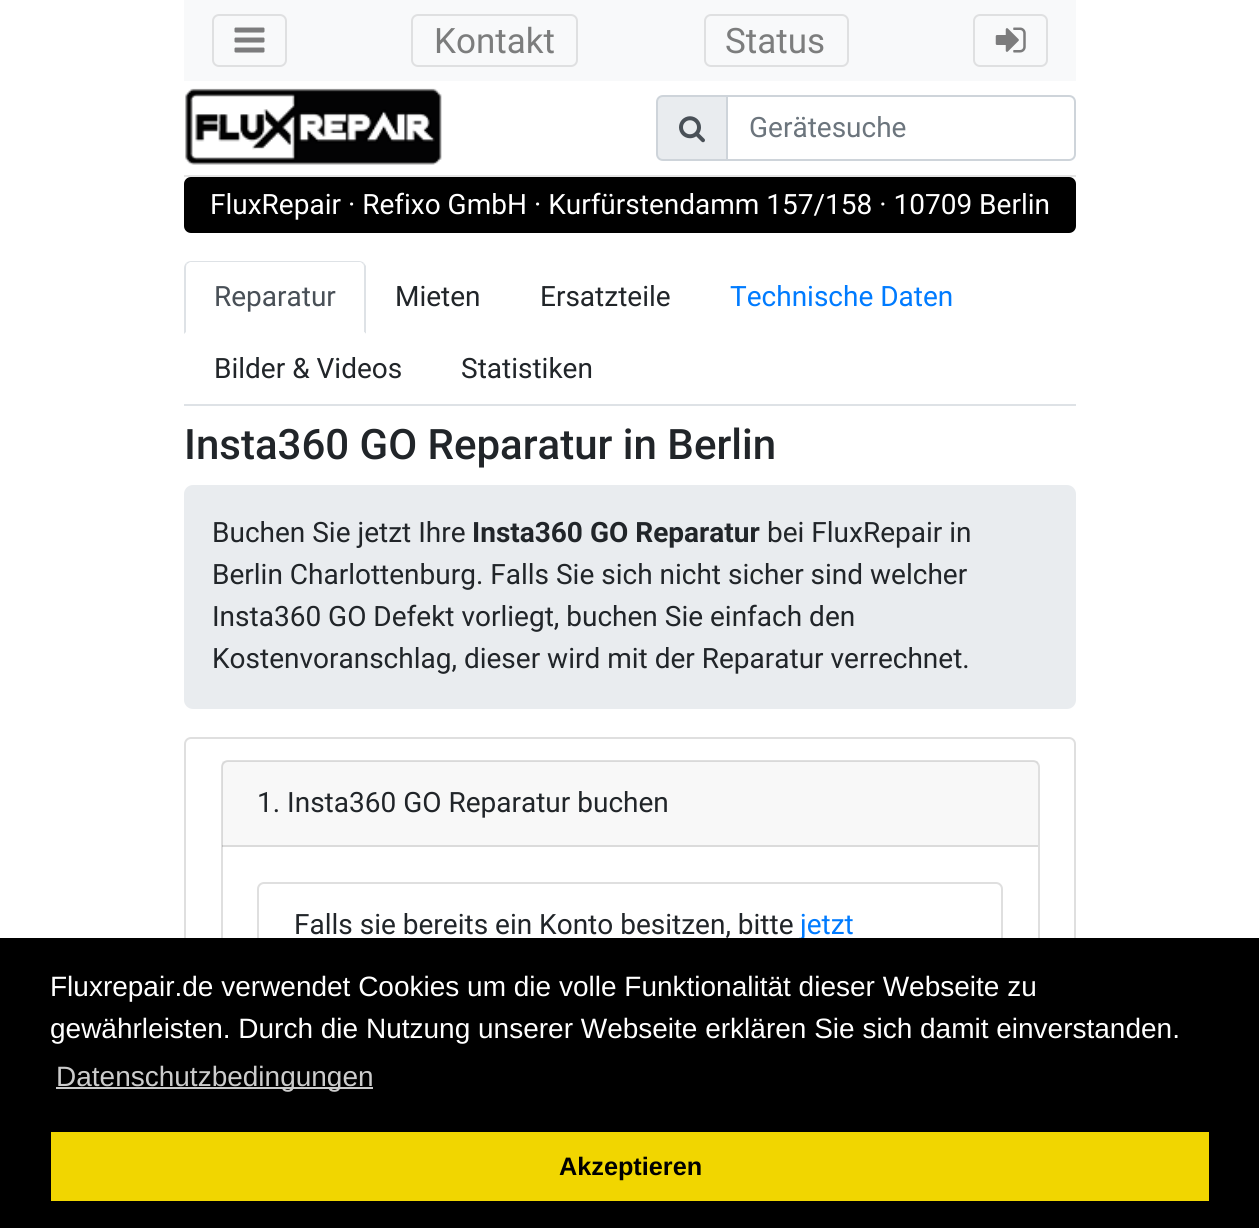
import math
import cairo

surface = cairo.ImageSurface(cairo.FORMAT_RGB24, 1259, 1228)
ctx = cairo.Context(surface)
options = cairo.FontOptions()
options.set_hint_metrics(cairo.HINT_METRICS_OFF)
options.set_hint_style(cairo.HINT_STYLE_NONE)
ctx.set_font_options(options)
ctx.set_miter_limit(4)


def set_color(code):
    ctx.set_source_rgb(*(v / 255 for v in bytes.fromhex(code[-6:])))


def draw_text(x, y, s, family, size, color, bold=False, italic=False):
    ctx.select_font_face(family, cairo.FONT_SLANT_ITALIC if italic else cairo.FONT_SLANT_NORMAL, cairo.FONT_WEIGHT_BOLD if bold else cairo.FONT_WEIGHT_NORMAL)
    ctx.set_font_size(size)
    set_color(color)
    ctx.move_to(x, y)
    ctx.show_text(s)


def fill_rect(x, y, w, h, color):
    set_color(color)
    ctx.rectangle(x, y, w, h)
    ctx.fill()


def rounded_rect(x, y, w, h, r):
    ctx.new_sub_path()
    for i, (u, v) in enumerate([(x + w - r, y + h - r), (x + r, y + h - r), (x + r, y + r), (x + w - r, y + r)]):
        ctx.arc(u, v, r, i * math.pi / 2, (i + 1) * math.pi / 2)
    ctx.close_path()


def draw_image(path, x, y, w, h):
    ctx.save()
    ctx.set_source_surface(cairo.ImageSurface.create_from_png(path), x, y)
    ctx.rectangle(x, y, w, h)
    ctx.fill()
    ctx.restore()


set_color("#ffffff")
ctx.paint()
fill_rect(184, 175, 892, 2, "#e5e5e5")
fill_rect(184, 0, 892, 81, "#f8f9fa")
rounded_rect(213, 15, 73, 51, 6)
set_color("#dfe0e1")
ctx.stroke()
draw_image("assets/img1.png", 234, 27, 31, 26)
rounded_rect(412, 15, 165, 51, 6)
ctx.stroke()
draw_text(434, 53, "Kontakt", "Roboto", 35, "#7c7d7d")
rounded_rect(705, 15, 143, 51, 6)
set_color("#dfe0e1")
ctx.stroke()
draw_text(725, 53, "Status", "Roboto", 35, "#7c7d7d")
rounded_rect(974, 15, 73, 51, 6)
set_color("#dfe0e1")
ctx.stroke()
draw_image("assets/img2.png", 995, 27, 31, 26)
draw_image("assets/img3.png", 185, 88, 257, 77)
set_color("#e9ecef")
ctx.new_path()
ctx.move_to(663, 96)
ctx.line_to(727, 96)
ctx.line_to(727, 160)
ctx.line_to(663, 160)
ctx.curve_to(659.5, 160, 657, 157.5, 657, 154)
ctx.line_to(657, 102)
ctx.curve_to(657, 98.5, 659.5, 96, 663, 96)
ctx.close_path()
ctx.fill_preserve()
set_color("#ced4da")
ctx.stroke()
draw_image("assets/img4.png", 679, 116, 26, 27)
ctx.new_path()
ctx.move_to(727, 96)
ctx.line_to(1069, 96)
ctx.curve_to(1072.5, 96, 1075, 98.5, 1075, 102)
ctx.line_to(1075, 154)
ctx.curve_to(1075, 157.5, 1072.5, 160, 1069, 160)
ctx.line_to(727, 160)
ctx.close_path()
ctx.stroke()
draw_text(749, 137, "Gerätesuche", "Roboto", 28, "#6c757d")
set_color("#000000")
rounded_rect(184, 177, 892, 56, 7)
ctx.fill()
draw_text(210, 214, "FluxRepair · Refixo GmbH · Kurfürstendamm 157/158 · 10709 Berlin", "Roboto", 28, "#ffffff")
fill_rect(184, 404, 892, 2, "#dee2e6")
ctx.new_path()
ctx.move_to(191, 261)
ctx.curve_to(189, 261, 187, 262, 186, 263)
ctx.line_to(187, 264)
ctx.line_to(190, 262)
ctx.line_to(360, 262)
ctx.curve_to(361, 262, 362, 263, 363, 264)
ctx.line_to(364, 263)
ctx.curve_to(363, 262, 361, 261, 359, 261)
ctx.close_path()
ctx.fill()
ctx.new_path()
ctx.move_to(364, 263)
ctx.line_to(366, 266)
ctx.line_to(366, 334)
ctx.line_to(364, 332)
ctx.line_to(364, 268)
ctx.curve_to(364, 266, 364, 265, 363, 264)
ctx.close_path()
ctx.fill()
set_color("#ffffff")
ctx.new_path()
ctx.move_to(366, 334)
ctx.line_to(184, 334)
ctx.line_to(186, 332)
ctx.line_to(364, 332)
ctx.close_path()
ctx.fill()
set_color("#dee2e6")
ctx.new_path()
ctx.move_to(186, 263)
ctx.curve_to(185, 264, 184, 266, 184, 268)
ctx.line_to(184, 334)
ctx.line_to(186, 332)
ctx.line_to(186, 268)
ctx.curve_to(186, 267, 186, 265, 187, 264)
ctx.close_path()
ctx.fill()
draw_text(214, 306, "Reparatur", "Roboto", 28, "#495057")
draw_text(395, 306, "Mieten", "Roboto", 28, "#212529")
draw_text(540, 306, "Ersatzteile", "Roboto", 28, "#212529")
draw_text(730, 306, "Technische Daten", "Roboto", 28, "#007bff")
draw_text(214, 378, "Bilder & Videos", "Roboto", 28, "#212529")
draw_text(461, 378, "Statistiken", "Roboto", 28, "#212529")
draw_text(184, 459, "Insta360 GO Reparatur in Berlin", "Roboto Medium", 42, "#212529")
set_color("#e9ecef")
rounded_rect(184, 485, 892, 224, 9)
ctx.fill()
draw_text(212, 542, "Buchen Sie jetzt Ihre", "Roboto", 28, "#212529")
draw_text(472, 542, "Insta360 GO Reparatur", "Roboto", 28, "#212529", bold=True)
draw_text(767, 542, "bei FluxRepair in", "Roboto", 28, "#212529")
draw_text(212, 584, "Berlin Charlottenburg. Falls Sie sich nicht sicher sind welcher", "Roboto", 28, "#212529")
draw_text(212, 626, "Insta360 GO Defekt vorliegt, buchen Sie einfach den", "Roboto", 28, "#212529")
draw_text(212, 668, "Kostenvoranschlag, dieser wird mit der Reparatur verrechnet.", "Roboto", 28, "#212529")
rounded_rect(185, 738, 890, 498, 6)
set_color("#dfdfdf")
ctx.stroke()
rounded_rect(222, 761, 817, 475, 6)
ctx.stroke()
ctx.set_source_rgba(0, 0, 0, 0.03)
ctx.rectangle(222, 761, 816, 86)
ctx.fill()
ctx.set_source_rgba(0, 0, 0, 0.12)
ctx.rectangle(222, 845, 816, 2)
ctx.fill()
draw_text(257, 812, "1. Insta360 GO Reparatur buchen", "Roboto", 28, "#212529")
rounded_rect(258, 883, 744, 128, 6)
set_color("#dfdfdf")
ctx.stroke()
draw_text(294, 934, "Falls sie bereits ein Konto besitzen, bitte", "Roboto", 28, "#212529")
draw_text(800, 934, "jetzt", "Roboto", 28, "#007bff")
fill_rect(0, 938, 1259, 290, "#000000")
draw_text(50, 996, "Fluxrepair.de verwendet Cookies um die volle Funktionalität dieser Webseite zu", "Liberation Sans", 28, "#ffffff")
draw_text(50, 1038, "gewährleisten. Durch die Nutzung unserer Webseite erklären Sie sich damit einverstanden.", "Liberation Sans", 28, "#ffffff")
fill_rect(56, 1087, 317, 2, "#cccccc")
draw_text(56, 1086, "Datenschutzbedingungen", "Liberation Sans", 28, "#cccccc")
fill_rect(51, 1132, 1158, 69, "#f1d600")
draw_text(559, 1175, "Akzeptieren", "Liberation Sans", 25.25, "#000000", bold=True)
surface.write_to_png("output.png")
